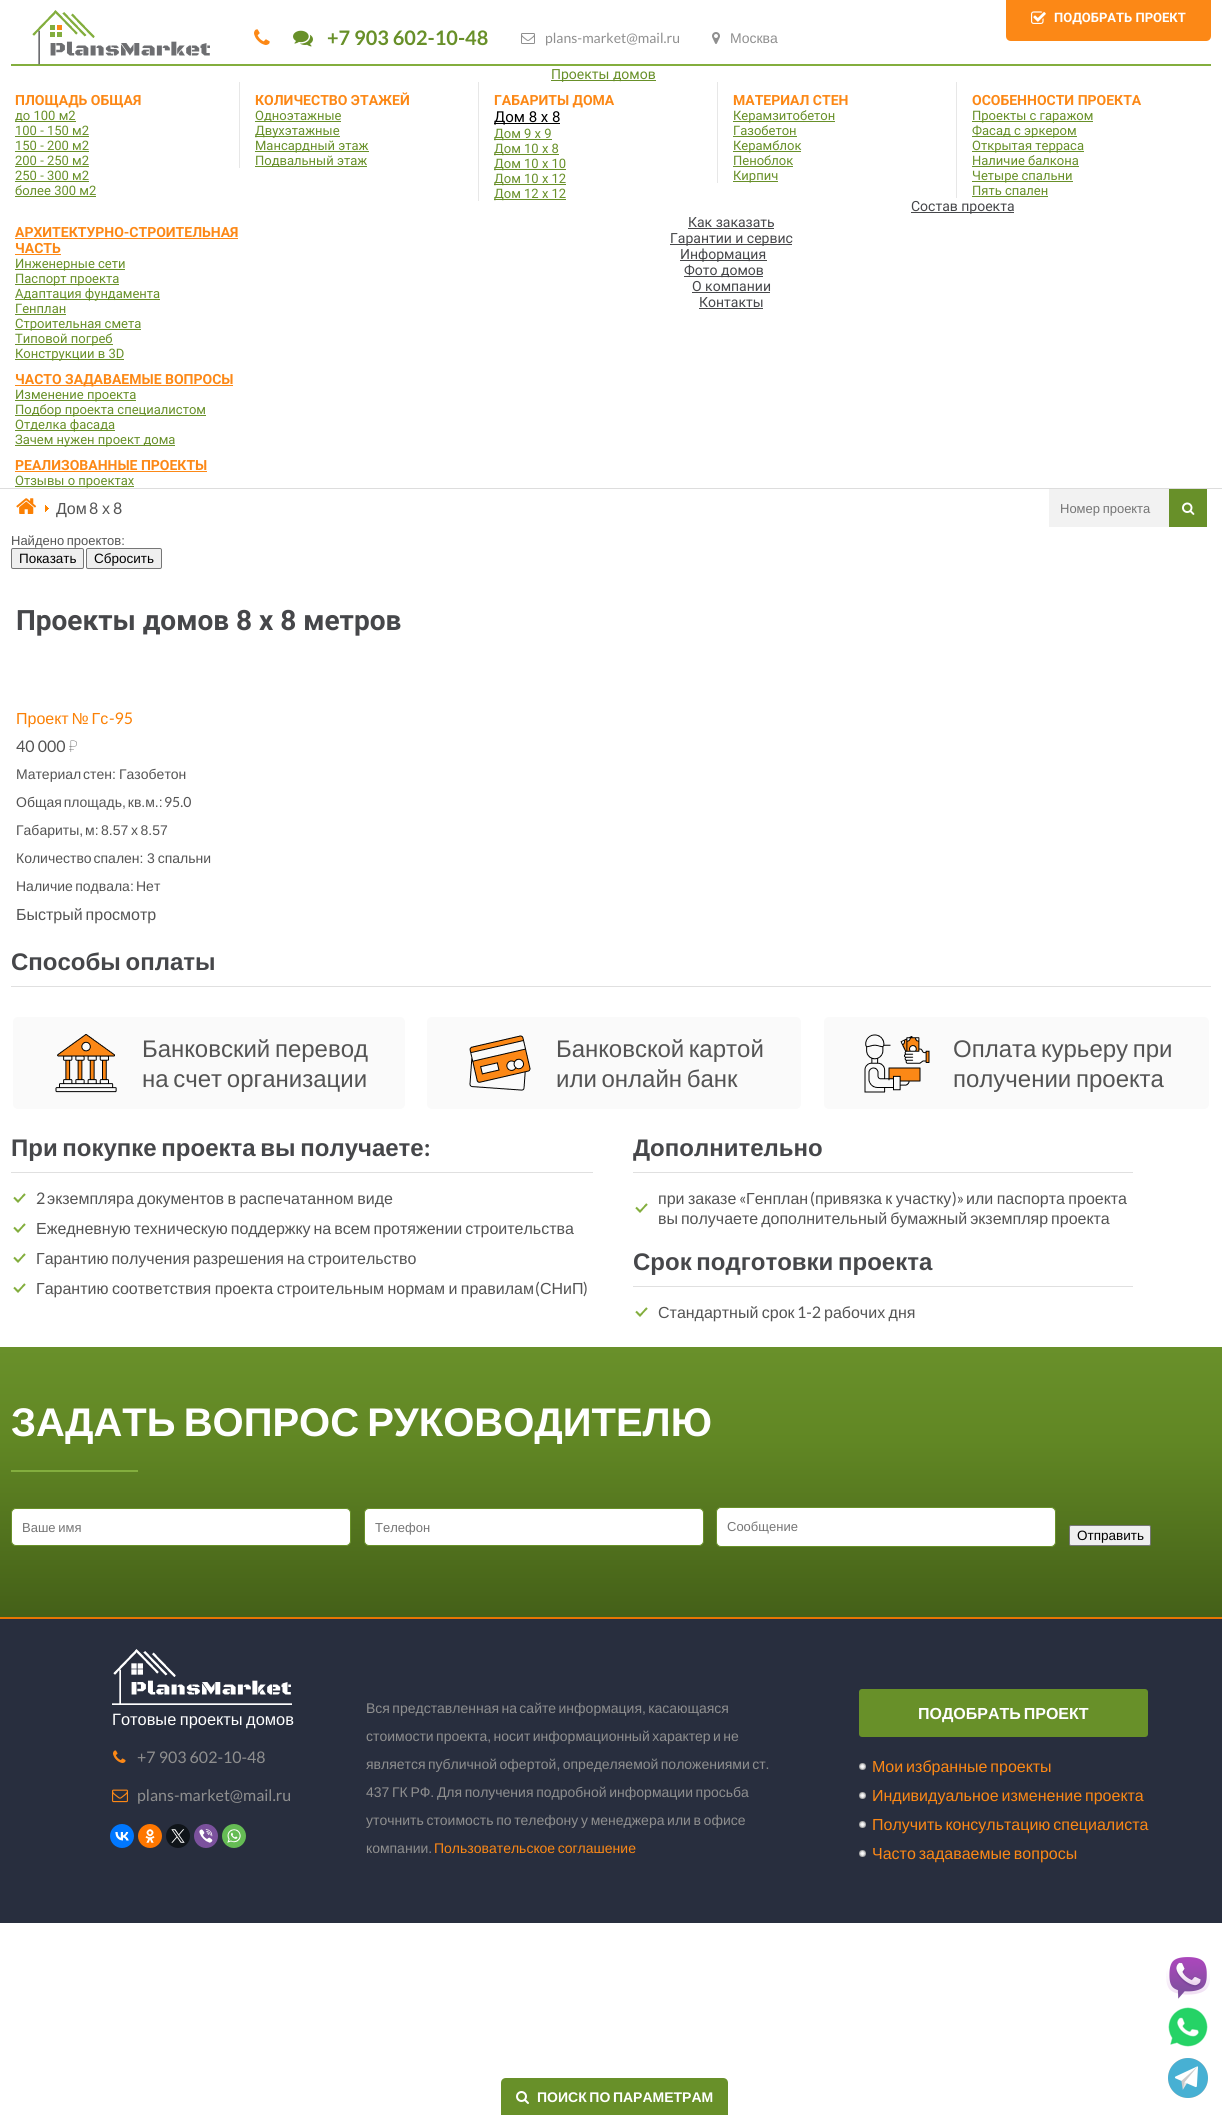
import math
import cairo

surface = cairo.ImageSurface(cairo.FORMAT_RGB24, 1222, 2115)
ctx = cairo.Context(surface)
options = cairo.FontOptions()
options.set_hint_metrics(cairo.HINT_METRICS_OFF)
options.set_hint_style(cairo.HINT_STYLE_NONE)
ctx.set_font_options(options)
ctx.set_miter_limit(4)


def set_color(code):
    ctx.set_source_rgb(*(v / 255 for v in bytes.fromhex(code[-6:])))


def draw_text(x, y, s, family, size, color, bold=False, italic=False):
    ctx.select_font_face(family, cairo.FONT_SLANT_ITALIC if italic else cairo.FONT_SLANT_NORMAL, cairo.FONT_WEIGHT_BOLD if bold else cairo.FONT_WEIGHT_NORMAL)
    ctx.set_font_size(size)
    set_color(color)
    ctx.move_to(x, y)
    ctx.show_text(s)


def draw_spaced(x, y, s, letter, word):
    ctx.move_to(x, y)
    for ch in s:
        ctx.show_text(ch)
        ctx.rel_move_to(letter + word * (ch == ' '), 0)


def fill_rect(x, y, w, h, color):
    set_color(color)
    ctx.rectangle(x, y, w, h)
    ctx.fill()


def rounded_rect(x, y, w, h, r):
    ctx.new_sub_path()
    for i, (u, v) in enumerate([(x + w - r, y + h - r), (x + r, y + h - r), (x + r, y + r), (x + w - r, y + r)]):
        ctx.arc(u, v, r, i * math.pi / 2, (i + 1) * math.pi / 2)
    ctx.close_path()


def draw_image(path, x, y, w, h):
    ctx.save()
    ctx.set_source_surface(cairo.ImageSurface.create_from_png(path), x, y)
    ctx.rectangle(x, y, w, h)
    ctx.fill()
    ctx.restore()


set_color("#ffffff")
ctx.paint()
fill_rect(11, 64, 1200, 2, "#83ae3e")
draw_image("assets/img1.png", 32, 10, 178, 55)
set_color("#fc8816")
ctx.new_path()
ctx.move_to(1006, 0)
ctx.line_to(1211, 0)
ctx.line_to(1211, 36)
ctx.curve_to(1211, 39, 1209, 41, 1206, 41)
ctx.line_to(1011, 41)
ctx.curve_to(1008, 41, 1006, 39, 1006, 36)
ctx.close_path()
ctx.fill()
draw_image("assets/img2.png", 1031, 11, 15, 13)
draw_text(1054, 22, "ПОДОБРАТЬ ПРОЕКТ", "Roboto", 13, "#ffffff", bold=True)
draw_image("assets/img3.png", 254, 29, 16, 16)
draw_image("assets/img4.png", 293, 30, 20, 17)
draw_text(327, 45, "+7 903 602-10-48", "Lato", 20, "#689029", bold=True)
draw_image("assets/img5.png", 521, 33, 14, 11)
draw_text(545, 43, "plans-market@mail.ru", "Lato", 14, "#8f8f8f")
draw_image("assets/img6.png", 712, 32, 8, 12)
draw_text(730, 43, "Москва", "Liberation Sans", 14, "#8f8f8f")
fill_rect(0, 488, 1222, 1, "#dddddd")
fill_rect(551, 80, 105, 1, "#689029")
draw_text(551, 79, "Проекты домов", "Roboto", 14, "#689029")
draw_text(15, 105, "ПЛОЩАДЬ ОБЩАЯ", "Roboto", 14, "#fc8816", bold=True)
fill_rect(15, 121, 61, 1, "#689029")
draw_text(15, 120, "до 100 м2", "Roboto", 13, "#689029")
draw_text(15, 135, "100 - 150 м2", "Roboto", 13, "#689029")
fill_rect(15, 136, 74, 1, "#689029")
draw_text(15, 150, "150 - 200 м2", "Roboto", 13, "#689029")
fill_rect(15, 151, 74, 1, "#689029")
draw_text(15, 165, "200 - 250 м2", "Roboto", 13, "#689029")
fill_rect(15, 166, 74, 1, "#689029")
draw_text(15, 180, "250 - 300 м2", "Roboto", 13, "#689029")
fill_rect(15, 181, 74, 1, "#689029")
draw_text(15, 195, "более 300 м2", "Roboto", 13, "#689029")
fill_rect(15, 196, 81, 1, "#689029")
fill_rect(239, 82, 1, 86, "#e7e7e7")
draw_text(255, 105, "КОЛИЧЕСТВО ЭТАЖЕЙ", "Roboto", 14, "#fc8816", bold=True)
fill_rect(255, 121, 86, 1, "#689029")
draw_text(255, 120, "Одноэтажные", "Roboto", 13, "#689029")
fill_rect(255, 136, 85, 1, "#689029")
draw_text(255, 135, "Двухэтажные", "Roboto", 13, "#689029")
fill_rect(255, 151, 114, 1, "#689029")
draw_text(255, 150, "Мансардный этаж", "Roboto", 13, "#689029")
fill_rect(255, 166, 112, 1, "#689029")
draw_text(255, 165, "Подвальный этаж", "Roboto", 13, "#689029")
fill_rect(478, 82, 1, 119, "#e7e7e7")
draw_text(494, 105, "ГАБАРИТЫ ДОМА", "Roboto", 14, "#fc8816", bold=True)
fill_rect(494, 123, 66, 1, "#000000")
draw_text(494, 122, "Дом 8 х 8", "Roboto", 15, "#000000")
fill_rect(494, 139, 58, 1, "#689029")
draw_text(494, 138, "Дом 9 х 9", "Roboto", 13, "#689029")
fill_rect(494, 154, 65, 1, "#689029")
draw_text(494, 153, "Дом 10 х 8", "Roboto", 13, "#689029")
fill_rect(494, 169, 72, 1, "#689029")
draw_text(494, 168, "Дом 10 х 10", "Roboto", 13, "#689029")
fill_rect(494, 184, 72, 1, "#689029")
draw_text(494, 183, "Дом 10 х 12", "Roboto", 13, "#689029")
fill_rect(494, 199, 72, 1, "#689029")
draw_text(494, 198, "Дом 12 х 12", "Roboto", 13, "#689029")
fill_rect(717, 82, 1, 101, "#e7e7e7")
draw_text(733, 105, "МАТЕРИАЛ СТЕН", "Roboto", 14, "#fc8816", bold=True)
fill_rect(733, 121, 102, 1, "#689029")
draw_text(733, 120, "Керамзитобетон", "Roboto", 13, "#689029")
draw_text(733, 135, "Газобетон", "Roboto", 13, "#689029")
fill_rect(733, 136, 64, 1, "#689029")
fill_rect(733, 151, 68, 1, "#689029")
draw_text(733, 150, "Керамблок", "Roboto", 13, "#689029")
draw_text(733, 165, "Пеноблок", "Roboto", 13, "#689029")
fill_rect(733, 166, 60, 1, "#689029")
fill_rect(733, 181, 45, 1, "#689029")
draw_text(733, 180, "Кирпич", "Roboto", 13, "#689029")
fill_rect(956, 82, 1, 116, "#e7e7e7")
draw_text(972, 105, "ОСОБЕННОСТИ ПРОЕКТА", "Roboto", 14, "#fc8816", bold=True)
fill_rect(972, 121, 121, 1, "#689029")
draw_text(972, 120, "Проекты с гаражом", "Roboto", 13, "#689029")
fill_rect(972, 136, 105, 1, "#689029")
draw_text(972, 135, "Фасад с эркером", "Roboto", 13, "#689029")
fill_rect(972, 151, 112, 1, "#689029")
draw_text(972, 150, "Открытая терраса", "Roboto", 13, "#689029")
draw_text(972, 165, "Наличие балкона", "Roboto", 13, "#689029")
fill_rect(972, 166, 107, 1, "#689029")
fill_rect(972, 181, 101, 1, "#689029")
draw_text(972, 180, "Четыре спальни", "Roboto", 13, "#689029")
draw_text(972, 195, "Пять спален", "Roboto", 13, "#689029")
fill_rect(972, 196, 76, 1, "#689029")
fill_rect(911, 212, 103, 1, "#46474a")
draw_text(911, 211, "Состав проекта", "Roboto", 14, "#46474a")
draw_text(15, 237, "АРХИТЕКТУРНО-СТРОИТЕЛЬНАЯ", "Roboto", 14, "#fc8816", bold=True)
fill_rect(15, 238, 223, 1, "#fc8816")
draw_text(15, 253, "ЧАСТЬ", "Roboto", 14, "#fc8816", bold=True)
fill_rect(15, 254, 46, 1, "#fc8816")
fill_rect(15, 269, 110, 1, "#689029")
draw_text(15, 268, "Инженерные сети", "Roboto", 13, "#689029")
fill_rect(15, 284, 104, 1, "#689029")
draw_text(15, 283, "Паспорт проекта", "Roboto", 13, "#689029")
fill_rect(15, 299, 145, 1, "#689029")
draw_text(15, 298, "Адаптация фундамента", "Roboto", 13, "#689029")
draw_text(15, 313, "Генплан", "Roboto", 13, "#689029")
fill_rect(15, 314, 51, 1, "#689029")
fill_rect(15, 329, 126, 1, "#689029")
draw_text(15, 328, "Строительная смета", "Roboto", 13, "#689029")
fill_rect(15, 344, 98, 1, "#689029")
draw_text(15, 343, "Типовой погреб", "Roboto", 13, "#689029")
fill_rect(15, 359, 109, 1, "#689029")
draw_text(15, 358, "Конструкции в 3D", "Roboto", 13, "#689029")
draw_text(688, 227, "Как заказать", "Roboto", 14, "#46474a")
fill_rect(688, 228, 86, 1, "#46474a")
fill_rect(670, 244, 122, 1, "#46474a")
draw_text(670, 243, "Гарантии и сервис", "Roboto", 14, "#46474a")
fill_rect(680, 260, 87, 1, "#46474a")
draw_text(680, 259, "Информация", "Roboto", 14, "#46474a")
fill_rect(15, 385, 218, 1, "#fc8816")
draw_text(15, 384, "ЧАСТО ЗАДАВАЕМЫЕ ВОПРОСЫ", "Roboto", 14, "#fc8816", bold=True)
fill_rect(15, 400, 121, 1, "#689029")
draw_text(15, 399, "Изменение проекта", "Roboto", 13, "#689029")
fill_rect(15, 415, 191, 1, "#689029")
draw_text(15, 414, "Подбор проекта специалистом", "Roboto", 13, "#689029")
fill_rect(15, 430, 100, 1, "#689029")
draw_text(15, 429, "Отделка фасада", "Roboto", 13, "#689029")
fill_rect(15, 445, 160, 1, "#689029")
draw_text(15, 444, "Зачем нужен проект дома", "Roboto", 13, "#689029")
fill_rect(684, 276, 79, 1, "#46474a")
draw_text(684, 275, "Фото домов", "Roboto", 14, "#46474a")
draw_text(15, 470, "РЕАЛИЗОВАННЫЕ ПРОЕКТЫ", "Roboto", 14, "#fc8816", bold=True)
fill_rect(15, 471, 192, 1, "#fc8816")
fill_rect(15, 486, 119, 1, "#689029")
draw_text(15, 485, "Отзывы о проектах", "Roboto", 13, "#689029")
draw_text(692, 291, "О компании", "Roboto", 14, "#46474a")
fill_rect(692, 292, 78, 1, "#46474a")
draw_text(699, 307, "Контакты", "Roboto", 14, "#46474a")
fill_rect(699, 308, 64, 1, "#46474a")
draw_image("assets/img7.png", 16, 498, 21, 16)
draw_image("assets/img8.png", 45, 505, 4, 7)
draw_text(56, 514, "Дом", "Liberation Sans", 16, "#545454")
draw_text(89, 514, "8", "Lato", 16, "#545454")
draw_text(102, 514, "х", "Liberation Sans", 16, "#545454")
draw_text(113, 514, "8", "Lato", 16, "#545454")
fill_rect(1049, 489, 120, 38, "#f2f2f2")
ctx.select_font_face("Liberation Sans")
ctx.set_font_size(13)
set_color("#757575")
draw_spaced(1060, 513, "Номер проекта", 0, -1)
fill_rect(1169, 489, 38, 38, "#689029")
draw_image("assets/img9.png", 1182, 502, 13, 13)
set_color("#545454")
draw_spaced(11, 545, "Найдено проектов:", 0, -1)
set_color("#efefef")
rounded_rect(11.5, 548.5, 72, 20, 1.5)
ctx.fill_preserve()
set_color("#767676")
ctx.set_line_width(1)
ctx.stroke()
draw_text(19, 563, "Показать", "Liberation Sans", 13.5, "#000000")
set_color("#efefef")
rounded_rect(86.5, 548.5, 75, 20, 1.5)
ctx.fill_preserve()
set_color("#767676")
ctx.stroke()
draw_text(94, 563, "Сбросить", "Liberation Sans", 13.5, "#000000")
draw_text(16, 630, "Проекты домов 8 x 8 метров", "Roboto", 28, "#46474a", bold=True)
ctx.select_font_face("Liberation Sans")
ctx.set_font_size(16)
set_color("#fb8004")
draw_spaced(16, 724, "Проект № Гс", 0, -1.5)
draw_text(109, 724, "-95", "Lato", 16, "#fb8004")
draw_text(16, 752, "40 000", "Lato", 16, "#545454")
draw_text(69, 752, "₽", "Noto Sans Thin", 16, "#545454")
ctx.select_font_face("Liberation Sans")
ctx.set_font_size(14)
draw_spaced(16, 779, "Материал стен:", 0, -2)
draw_text(119, 779, "Газобетон", "Liberation Sans", 14, "#545454")
draw_spaced(16, 807, "Общая площадь, кв.м.:", 0, -2)
draw_text(164, 807, "95.0", "Lato", 14, "#545454")
ctx.select_font_face("Liberation Sans")
draw_spaced(16, 835, "Габариты, м:", 0, -2)
draw_spaced(101, 835, "8.57 х 8.57", 0, -1.25)
draw_spaced(16, 863, "Количество спален:", 0, -2)
draw_spaced(147, 863, "3 спальни", 0, -1)
draw_spaced(16, 891, "Наличие подвала:", 0, -1.5)
draw_text(136, 891, "Нет", "Liberation Sans", 14, "#545454")
ctx.set_font_size(16)
draw_spaced(16, 920, "Быстрый просмотр", 0, -1.5)
fill_rect(11, 986, 1200, 1, "#e0e0e0")
ctx.select_font_face("Liberation Sans", cairo.FONT_SLANT_NORMAL, cairo.FONT_WEIGHT_BOLD)
ctx.set_font_size(24)
set_color("#46474a")
draw_spaced(11, 970, "Способы оплаты", 0, -2)
set_color("#fafafa")
rounded_rect(13, 1017, 392, 92, 5)
ctx.fill()
draw_image("assets/img10.png", 55, 1034, 62, 59)
ctx.select_font_face("Liberation Sans")
set_color("#545454")
draw_spaced(142, 1057, "Банковский перевод", 0, -2)
draw_spaced(142, 1087, "на счет организации", 0, -2)
set_color("#fafafa")
rounded_rect(427, 1017, 374, 92, 5)
ctx.fill()
draw_image("assets/img11.png", 469, 1035, 62, 56)
set_color("#545454")
draw_spaced(556, 1057, "Банковской картой", 0, -2)
draw_spaced(556, 1087, "или онлайн банк", 0, -2)
set_color("#fafafa")
rounded_rect(824, 1017, 385, 92, 5)
ctx.fill()
draw_image("assets/img12.png", 864, 1034, 66, 59)
set_color("#545454")
draw_spaced(953, 1057, "Оплата курьеру при", 0, -2)
draw_spaced(953, 1087, "получении проекта", 0, -2)
fill_rect(11, 1172, 582, 1, "#e0e0e0")
ctx.select_font_face("Liberation Sans", cairo.FONT_SLANT_NORMAL, cairo.FONT_WEIGHT_BOLD)
set_color("#46474a")
draw_spaced(11, 1156, "При покупке проекта вы получаете", 0, -2)
draw_text(424, 1156, ":", "Lato", 24, "#46474a", bold=True)
draw_image("assets/img13.png", 13, 1193, 13, 10)
draw_text(36, 1204, "2", "Lato", 16, "#545454")
ctx.select_font_face("Liberation Sans")
draw_spaced(47, 1204, "экземпляра документов в распечатанном виде", 0, -1)
draw_image("assets/img13.png", 13, 1223, 13, 10)
draw_spaced(36, 1234, "Ежедневную техническую поддержку на всем протяжении строительства", 0, -1.5)
draw_image("assets/img13.png", 13, 1253, 13, 10)
draw_spaced(36, 1264, "Гарантию получения разрешения на строительство", 0, -1.5)
draw_image("assets/img13.png", 13, 1283, 13, 10)
draw_spaced(36, 1294, "Гарантию соответствия проекта строительным нормам и правилам", 0, -1)
draw_text(535, 1294, "(", "Lato", 16, "#545454")
draw_text(540, 1294, "СНиП", "Liberation Sans", 16, "#545454")
draw_text(583, 1294, ")", "Lato", 16, "#545454")
fill_rect(633, 1172, 500, 1, "#e0e0e0")
draw_text(633, 1156, "Дополнительно", "Liberation Sans", 24, "#46474a", bold=True)
draw_image("assets/img13.png", 635, 1203, 13, 10)
ctx.select_font_face("Liberation Sans")
ctx.set_font_size(16)
set_color("#545454")
draw_spaced(658, 1204, "при заказе", 0, -1)
draw_text(739, 1204, "«", "Lato", 16, "#545454")
draw_text(746, 1204, "Генплан", "Liberation Sans", 16, "#545454")
draw_text(810, 1204, "(", "Lato", 16, "#545454")
ctx.select_font_face("Liberation Sans")
draw_spaced(815, 1204, "привязка к участку", 0, -1)
draw_text(952, 1204, ")»", "Lato", 16, "#545454")
ctx.select_font_face("Liberation Sans")
draw_spaced(966, 1204, "или паспорта проекта", 0, -1)
draw_spaced(658, 1224, "вы получаете дополнительный бумажный экземпляр проекта", 0, -1.5)
fill_rect(633, 1286, 500, 1, "#e0e0e0")
ctx.select_font_face("Liberation Sans", cairo.FONT_SLANT_NORMAL, cairo.FONT_WEIGHT_BOLD)
ctx.set_font_size(24)
set_color("#46474a")
draw_spaced(633, 1270, "Срок подготовки проекта", 0, -2)
draw_image("assets/img13.png", 635, 1307, 13, 10)
ctx.select_font_face("Liberation Sans")
ctx.set_font_size(16)
set_color("#545454")
draw_spaced(658, 1318, "Стандартный срок", 0, -1)
draw_text(797, 1318, "1-2", "Lato", 16, "#545454")
ctx.select_font_face("Liberation Sans")
draw_spaced(824, 1318, "рабочих дня", 0, -1)
gradient = cairo.LinearGradient(611, 1347, 611, 1617)
gradient.add_color_stop_rgba(0, 0.412, 0.565, 0.165, 1)
gradient.add_color_stop_rgba(0.35, 0.38, 0.529, 0.141, 1)
gradient.add_color_stop_rgba(1, 0.267, 0.376, 0.094, 1)
ctx.set_source(gradient)
ctx.rectangle(0, 1347, 1222, 270)
ctx.fill()
fill_rect(0, 1617, 1222, 2, "#e77504")
ctx.select_font_face("Liberation Sans", cairo.FONT_SLANT_NORMAL, cairo.FONT_WEIGHT_BOLD)
ctx.set_font_size(40)
set_color("#ffffff")
draw_spaced(11, 1436, "ЗАДАТЬ ВОПРОС РУКОВОДИТЕЛЮ", 0, -3)
fill_rect(11, 1470, 127, 2, "#83ae3e")
set_color("#ffffff")
rounded_rect(11.5, 1508.5, 339, 37, 4.5)
ctx.fill_preserve()
set_color("#689029")
ctx.stroke()
ctx.select_font_face("Liberation Sans")
ctx.set_font_size(13)
set_color("#757575")
draw_spaced(22, 1532, "Ваше имя", 0, -1)
set_color("#ffffff")
rounded_rect(364.5, 1508.5, 339, 37, 4.5)
ctx.fill_preserve()
set_color("#689029")
ctx.stroke()
draw_text(375, 1532, "Телефон", "Liberation Sans", 13, "#757575")
set_color("#ffffff")
rounded_rect(716.5, 1507.5, 339, 39, 4.5)
ctx.fill_preserve()
set_color("#689029")
ctx.stroke()
draw_text(727, 1531, "Сообщение", "Liberation Sans", 13, "#757575")
set_color("#efefef")
rounded_rect(1069.5, 1525.5, 81, 20, 1.5)
ctx.fill_preserve()
set_color("#767676")
ctx.stroke()
draw_text(1077, 1540, "Отправить", "Liberation Sans", 13.5, "#000000")
fill_rect(0, 1619, 1222, 304, "#282e3e")
draw_image("assets/img14.png", 112, 1649, 180, 56)
ctx.set_font_size(16.4)
set_color("#ffffff")
draw_spaced(112, 1725, "Готовые проекты домов", 0, -1)
draw_image("assets/img15.png", 113, 1750, 13, 13)
draw_text(137, 1763, "+7 903 602-10-48", "Lato", 16, "#8f8f8f")
draw_image("assets/img16.png", 112, 1789, 16, 14)
draw_text(137, 1801, "plans-market@mail.ru", "Lato", 16, "#8f8f8f")
set_color("#0077ff")
ctx.new_path()
ctx.arc(122, 1836, 12, 0, 2 * math.pi)
ctx.fill()
draw_image("assets/img17.png", 115, 1832, 14, 9)
set_color("#ff7700")
ctx.arc(150, 1836, 12, 0, 2 * math.pi)
ctx.fill()
draw_image("assets/img18.png", 145, 1829, 10, 14)
set_color("#0f1419")
ctx.arc(178, 1836, 12, 0, 2 * math.pi)
ctx.fill()
draw_image("assets/img19.png", 171, 1829, 14, 14)
set_color("#7b519d")
ctx.arc(206, 1836, 12, 0, 2 * math.pi)
ctx.fill()
draw_image("assets/img20.png", 199, 1829, 14, 14)
set_color("#65bc54")
ctx.arc(234, 1836, 12, 0, 2 * math.pi)
ctx.fill()
draw_image("assets/img21.png", 227, 1829, 14, 14)
ctx.select_font_face("Liberation Sans")
ctx.set_font_size(14)
set_color("#8f8f8f")
draw_spaced(366, 1713, "Вся представленная на сайте информация, касающаяся", 0, -1.5)
draw_spaced(366, 1741, "стоимости проекта, носит информационный характер и не", 0, -1.5)
draw_spaced(366, 1769, "является публичной офертой, определяемой положениями ст.", 0, -1.5)
draw_spaced(366, 1797, "437 ГК РФ. Для получения подробной информации просьба", 0, -1.25)
draw_spaced(366, 1825, "уточнить стоимость по телефону у менеджера или в офисе", 0, -1.25)
draw_text(366, 1853, "компании.", "Liberation Sans", 14, "#8f8f8f")
set_color("#fc8816")
draw_spaced(434, 1853, "Пользовательское соглашение", 0, -1.25)
set_color("#689029")
rounded_rect(859, 1689, 289, 48, 3)
ctx.fill()
ctx.select_font_face("Liberation Sans", cairo.FONT_SLANT_NORMAL, cairo.FONT_WEIGHT_BOLD)
ctx.set_font_size(16)
set_color("#ffffff")
draw_spaced(918, 1719, "ПОДОБРАТЬ ПРОЕКТ", 0, -1.5)
draw_image("assets/img22.png", 859, 1763, 7, 7)
ctx.select_font_face("Liberation Sans")
set_color("#fc8816")
draw_spaced(872, 1772, "Мои избранные проекты", 0, -1.5)
draw_image("assets/img22.png", 859, 1792, 7, 7)
draw_spaced(872, 1801, "Индивидуальное изменение проекта", 0, -1.5)
draw_image("assets/img22.png", 859, 1821, 7, 7)
draw_spaced(872, 1830, "Получить консультацию специалиста", 0, -1.5)
draw_image("assets/img22.png", 859, 1850, 7, 7)
draw_spaced(872, 1859, "Часто задаваемые вопросы", 0, -1.5)
set_color("#689029")
ctx.new_path()
ctx.move_to(506, 2078)
ctx.line_to(723, 2078)
ctx.curve_to(726, 2078, 728, 2080, 728, 2083)
ctx.line_to(728, 2115)
ctx.line_to(501, 2115)
ctx.line_to(501, 2083)
ctx.curve_to(501, 2080, 503, 2078, 506, 2078)
ctx.close_path()
ctx.fill()
draw_image("assets/img23.png", 516, 2091, 13, 13)
ctx.select_font_face("Liberation Sans", cairo.FONT_SLANT_NORMAL, cairo.FONT_WEIGHT_BOLD)
ctx.set_font_size(14)
set_color("#ffffff")
draw_spaced(537, 2102, "ПОИСК ПО ПАРАМЕТРАМ", 0, -1.25)
draw_image("assets/img24.png", 1166, 1957, 44, 42)
draw_image("assets/img25.png", 1168, 2007, 40, 40)
draw_image("assets/img26.png", 1168, 2058, 40, 40)
surface.write_to_png("output.png")
